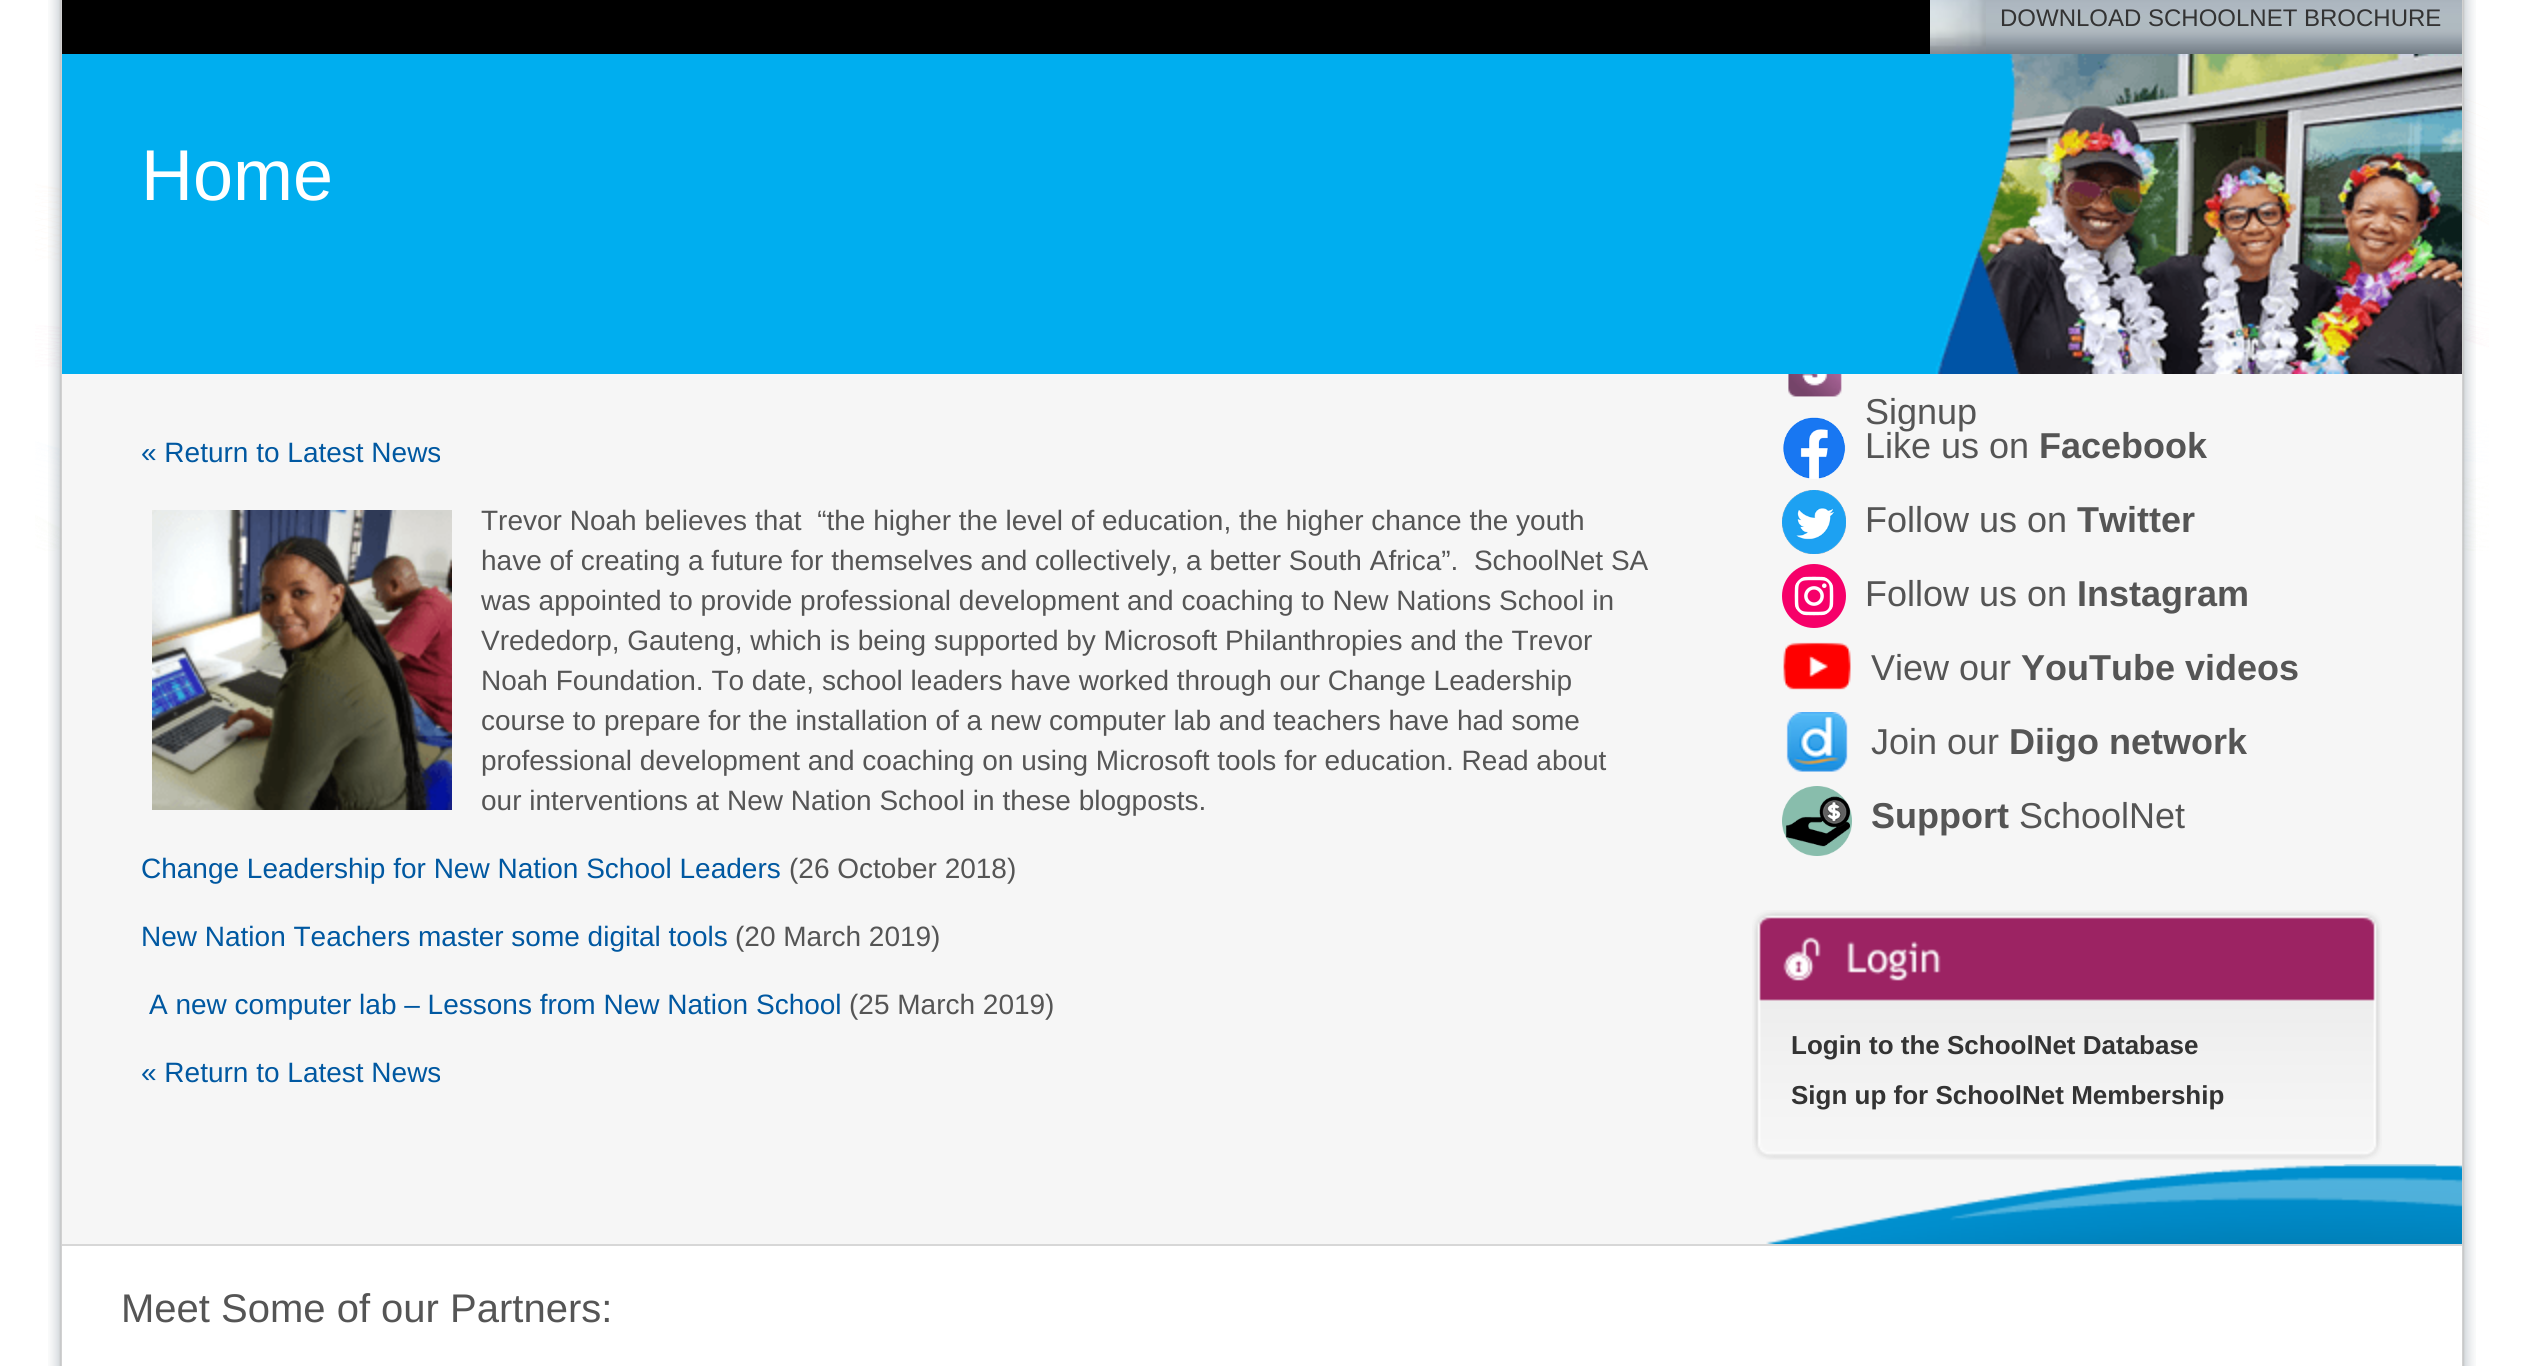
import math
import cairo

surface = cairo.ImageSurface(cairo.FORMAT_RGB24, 2521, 1366)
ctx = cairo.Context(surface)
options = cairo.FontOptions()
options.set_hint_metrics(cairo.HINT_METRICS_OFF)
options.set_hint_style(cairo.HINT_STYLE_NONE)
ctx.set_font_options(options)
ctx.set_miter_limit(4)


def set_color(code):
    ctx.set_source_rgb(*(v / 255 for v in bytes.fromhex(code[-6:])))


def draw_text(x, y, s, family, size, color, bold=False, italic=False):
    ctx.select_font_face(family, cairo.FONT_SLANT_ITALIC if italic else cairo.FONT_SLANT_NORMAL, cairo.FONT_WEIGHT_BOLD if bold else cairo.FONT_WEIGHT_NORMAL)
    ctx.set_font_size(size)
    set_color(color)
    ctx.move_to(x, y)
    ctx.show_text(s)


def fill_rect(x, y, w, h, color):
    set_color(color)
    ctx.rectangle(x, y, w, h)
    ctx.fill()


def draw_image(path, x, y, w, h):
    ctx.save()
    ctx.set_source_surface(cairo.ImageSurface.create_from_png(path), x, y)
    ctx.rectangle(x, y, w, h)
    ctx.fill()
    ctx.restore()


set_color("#ffffff")
ctx.paint()
draw_image("assets/img1.png", 35, 98, 2454, 453)
draw_image("assets/img2.png", 48, 0, 2428, 1366)
draw_image("assets/img3.png", 1930, 0, 532, 54)
draw_text(2000, 26, "DOWNLOAD SCHOOLNET BROCHURE", "Liberation Sans", 24, "#333333")
fill_rect(62, 0, 1868, 54, "#000000")
draw_image("assets/img4.png", 62, 54, 2400, 320)
draw_text(141, 200, "Home", "Liberation Sans", 72, "#ffffff")
fill_rect(62, 374, 2400, 870, "#f6f6f6")
draw_text(141, 462, "« Return to Latest News", "Liberation Sans", 28, "#0058a1")
draw_image("assets/img5.png", 152, 510, 300, 300)
draw_text(481, 530, "Trevor Noah believes that  “the higher the level of education, the higher chance the youth", "Liberation Sans", 28, "#555555")
draw_text(481, 570, "have of creating a future for themselves and collectively, a better South Africa”.  SchoolNet SA", "Liberation Sans", 28, "#555555")
draw_text(481, 610, "was appointed to provide professional development and coaching to New Nations School in", "Liberation Sans", 28, "#555555")
draw_text(481, 650, "Vrededorp, Gauteng, which is being supported by Microsoft Philanthropies and the Trevor", "Liberation Sans", 28, "#555555")
draw_text(481, 690, "Noah Foundation. To date, school leaders have worked through our Change Leadership", "Liberation Sans", 28, "#555555")
draw_text(481, 730, "course to prepare for the installation of a new computer lab and teachers have had some", "Liberation Sans", 28, "#555555")
draw_text(481, 770, "professional development and coaching on using Microsoft tools for education. Read about", "Liberation Sans", 28, "#555555")
draw_text(481, 810, "our interventions at New Nation School in these blogposts.", "Liberation Sans", 28, "#555555")
draw_text(141, 878, "Change Leadership for New Nation School Leaders", "Liberation Sans", 28, "#0058a1")
draw_text(789, 878, "(26 October 2018)", "Liberation Sans", 28, "#555555")
draw_text(141, 946, "New Nation Teachers master some digital tools", "Liberation Sans", 28, "#0058a1")
draw_text(735, 946, "(20 March 2019)", "Liberation Sans", 28, "#555555")
draw_text(149, 1014, "A new computer lab – Lessons from New Nation School", "Liberation Sans", 28, "#0058a1")
draw_text(849, 1014, "(25 March 2019)", "Liberation Sans", 28, "#555555")
draw_text(141, 1082, "« Return to Latest News", "Liberation Sans", 28, "#0058a1")
draw_image("assets/img6.png", 1788, 374, 54, 23)
draw_text(1865, 424, "Signup", "Liberation Sans", 36, "#555555")
draw_image("assets/img7.png", 1783, 417, 63, 62)
draw_text(1865, 458, "Like us on", "Liberation Sans", 36, "#555555")
draw_text(2039, 458, "Facebook", "Liberation Sans", 36, "#555555", bold=True)
draw_image("assets/img8.png", 1782, 490, 64, 64)
draw_text(1865, 532, "Follow us on", "Liberation Sans", 36, "#555555")
draw_text(2077, 532, "Twitter", "Liberation Sans", 36, "#555555", bold=True)
set_color("#f60069")
ctx.new_path()
ctx.arc(1814, 596, 32, 0, 2 * math.pi)
ctx.fill()
draw_image("assets/img9.png", 1794, 576, 40, 40)
draw_text(1865, 606, "Follow us on", "Liberation Sans", 36, "#555555")
draw_text(2077, 606, "Instagram", "Liberation Sans", 36, "#555555", bold=True)
draw_image("assets/img10.png", 1783, 642, 68, 48)
draw_text(1871, 680, "View our", "Liberation Sans", 36, "#555555")
draw_text(2021, 680, "YouTube videos", "Liberation Sans", 36, "#555555", bold=True)
draw_image("assets/img11.png", 1786, 712, 62, 60)
draw_text(1871, 754, "Join our", "Liberation Sans", 36, "#555555")
draw_text(2009, 754, "Diigo network", "Liberation Sans", 36, "#555555", bold=True)
draw_image("assets/img12.png", 1782, 786, 70, 70)
draw_text(1871, 828, "Support", "Liberation Sans", 36, "#555555", bold=True)
draw_text(2019, 828, "SchoolNet", "Liberation Sans", 36, "#555555")
draw_image("assets/img13.png", 1752, 910, 630, 250)
draw_text(1791, 1054, "Login to the SchoolNet Database", "Liberation Sans", 26, "#333333", bold=True)
draw_text(1791, 1104, "Sign up for SchoolNet Membership", "Liberation Sans", 26, "#333333", bold=True)
draw_image("assets/img14.png", 1766, 1164, 696, 80)
fill_rect(62, 1246, 2400, 120, "#ffffff")
fill_rect(62, 1244, 2400, 2, "#d7d7d7")
draw_text(121, 1322, "Meet Some of our Partners:", "Liberation Sans", 40, "#555555")
surface.write_to_png("output.png")
